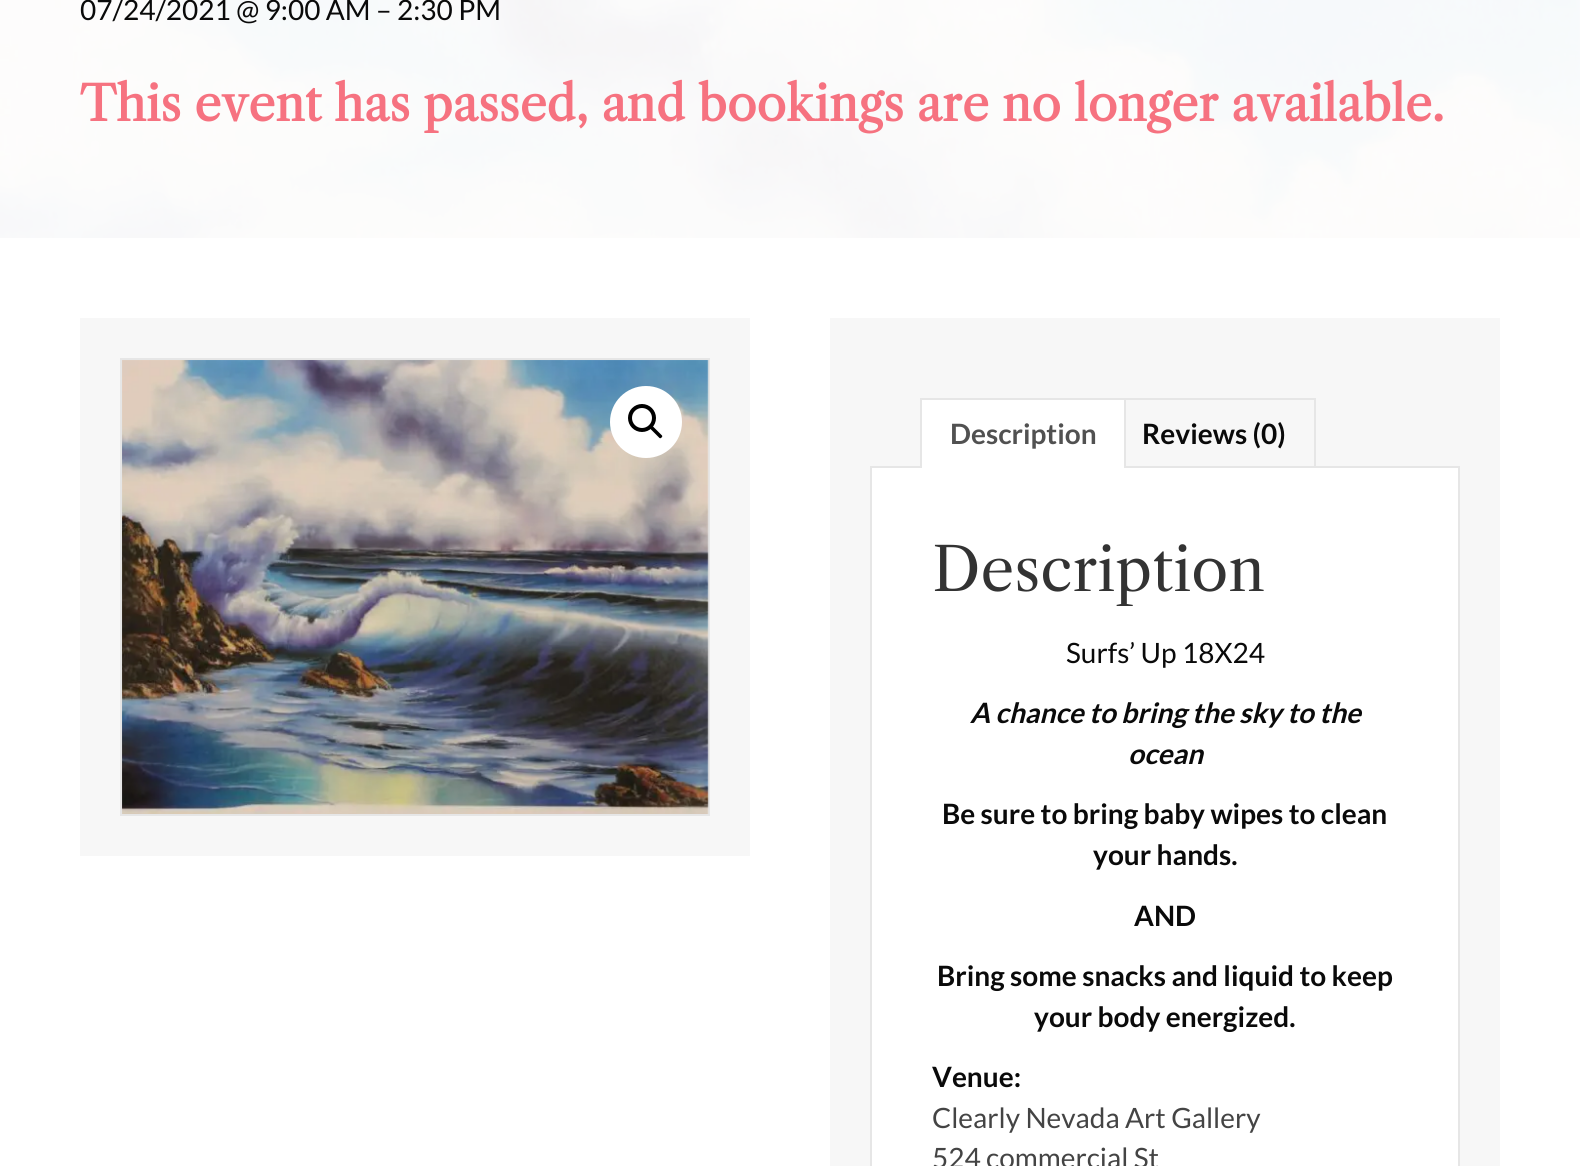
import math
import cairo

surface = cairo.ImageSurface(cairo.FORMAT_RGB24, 1580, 1166)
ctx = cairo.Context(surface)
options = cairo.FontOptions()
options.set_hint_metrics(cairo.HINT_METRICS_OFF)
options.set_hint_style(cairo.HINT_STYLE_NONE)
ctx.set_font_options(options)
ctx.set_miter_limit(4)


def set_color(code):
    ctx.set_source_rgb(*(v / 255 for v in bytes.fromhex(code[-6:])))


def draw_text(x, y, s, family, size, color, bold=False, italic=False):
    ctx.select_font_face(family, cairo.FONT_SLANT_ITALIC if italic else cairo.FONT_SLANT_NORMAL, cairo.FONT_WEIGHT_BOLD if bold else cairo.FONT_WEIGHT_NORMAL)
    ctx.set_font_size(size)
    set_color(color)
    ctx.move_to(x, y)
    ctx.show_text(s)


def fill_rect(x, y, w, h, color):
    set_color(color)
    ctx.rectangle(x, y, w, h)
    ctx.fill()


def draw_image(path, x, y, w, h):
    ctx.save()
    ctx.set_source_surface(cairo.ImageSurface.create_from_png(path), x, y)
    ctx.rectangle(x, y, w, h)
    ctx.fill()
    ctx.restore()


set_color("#ffffff")
ctx.paint()
draw_image("assets/img1.png", 0, 0, 1580, 238)
draw_text(80, 20, "07/24/2021 @ 9:00 AM – 2:30 PM", "Lato", 28, "#0a0a0a")
draw_text(80, 121, "This event has passed, and bookings are no longer available.", "Libre Caslon Text", 48, "#f67280", bold=True)
fill_rect(80, 318, 670, 538, "#f7f7f7")
ctx.rectangle(121, 359, 588, 456)
set_color("#e6e6e6")
ctx.stroke()
draw_image("assets/img2.png", 122, 360, 587, 454)
set_color("#ffffff")
ctx.arc(646, 422, 36, 0, 2 * math.pi)
ctx.fill()
ctx.arc(642, 418, 12, 0, 2 * math.pi)
set_color("#000000")
ctx.set_line_width(4)
ctx.stroke()
ctx.new_path()
ctx.move_to(650.5, 426.5)
ctx.curve_to(651, 425.5, 652.5, 425.5, 653, 426.5)
ctx.line_to(661.5, 435)
ctx.curve_to(662.5, 435.5, 662.5, 437, 661.5, 437.5)
ctx.curve_to(661, 438.5, 659.5, 438.5, 659, 437.5)
ctx.line_to(650.5, 429)
ctx.curve_to(649.5, 428.5, 649.5, 427, 650.5, 426.5)
ctx.close_path()
ctx.fill()
fill_rect(830, 318, 670, 848, "#f7f7f7")
fill_rect(920, 398, 396, 2, "#e6e6e6")
fill_rect(1314, 398, 2, 70, "#e6e6e6")
fill_rect(870, 466, 590, 2, "#e6e6e6")
fill_rect(922, 400, 202, 68, "#ffffff")
fill_rect(1124, 398, 2, 70, "#e6e6e6")
fill_rect(920, 398, 2, 70, "#e6e6e6")
draw_text(950, 444, "Description", "Lato", 28, "#515151", bold=True)
draw_text(1142, 444, "Reviews (0)", "Lato", 28, "#0a0a0a", bold=True)
fill_rect(872, 468, 586, 698, "#ffffff")
fill_rect(1458, 468, 2, 698, "#e6e6e6")
fill_rect(870, 468, 2, 698, "#e6e6e6")
draw_text(932, 591, "Description", "Libre Caslon Text", 60, "#333333")
draw_text(1066, 663, "Surfs’ Up 18X24", "Lato", 28, "#0a0a0a")
draw_text(970, 723, "A chance to bring the sky to the", "Lato", 28, "#0a0a0a", bold=True, italic=True)
draw_text(1128, 764, "ocean", "Lato", 28, "#0a0a0a", bold=True, italic=True)
draw_text(942, 824, "Be sure to bring baby wipes to clean", "Lato", 28, "#0a0a0a", bold=True)
draw_text(1093, 865, "your hands.", "Lato", 28, "#0a0a0a", bold=True)
draw_text(1134, 926, "AND", "Lato", 28, "#0a0a0a", bold=True)
draw_text(937, 986, "Bring some snacks and liquid to keep", "Lato", 28, "#0a0a0a", bold=True)
draw_text(1034, 1027, "your body energized.", "Lato", 28, "#0a0a0a", bold=True)
draw_text(932, 1087, "Venue:", "Lato", 28, "#0a0a0a", bold=True)
draw_text(932, 1128, "Clearly Nevada Art Gallery", "Lato", 28, "#444444")
draw_text(932, 1168, "524 commercial St", "Lato", 28, "#444444")
surface.write_to_png("output.png")
